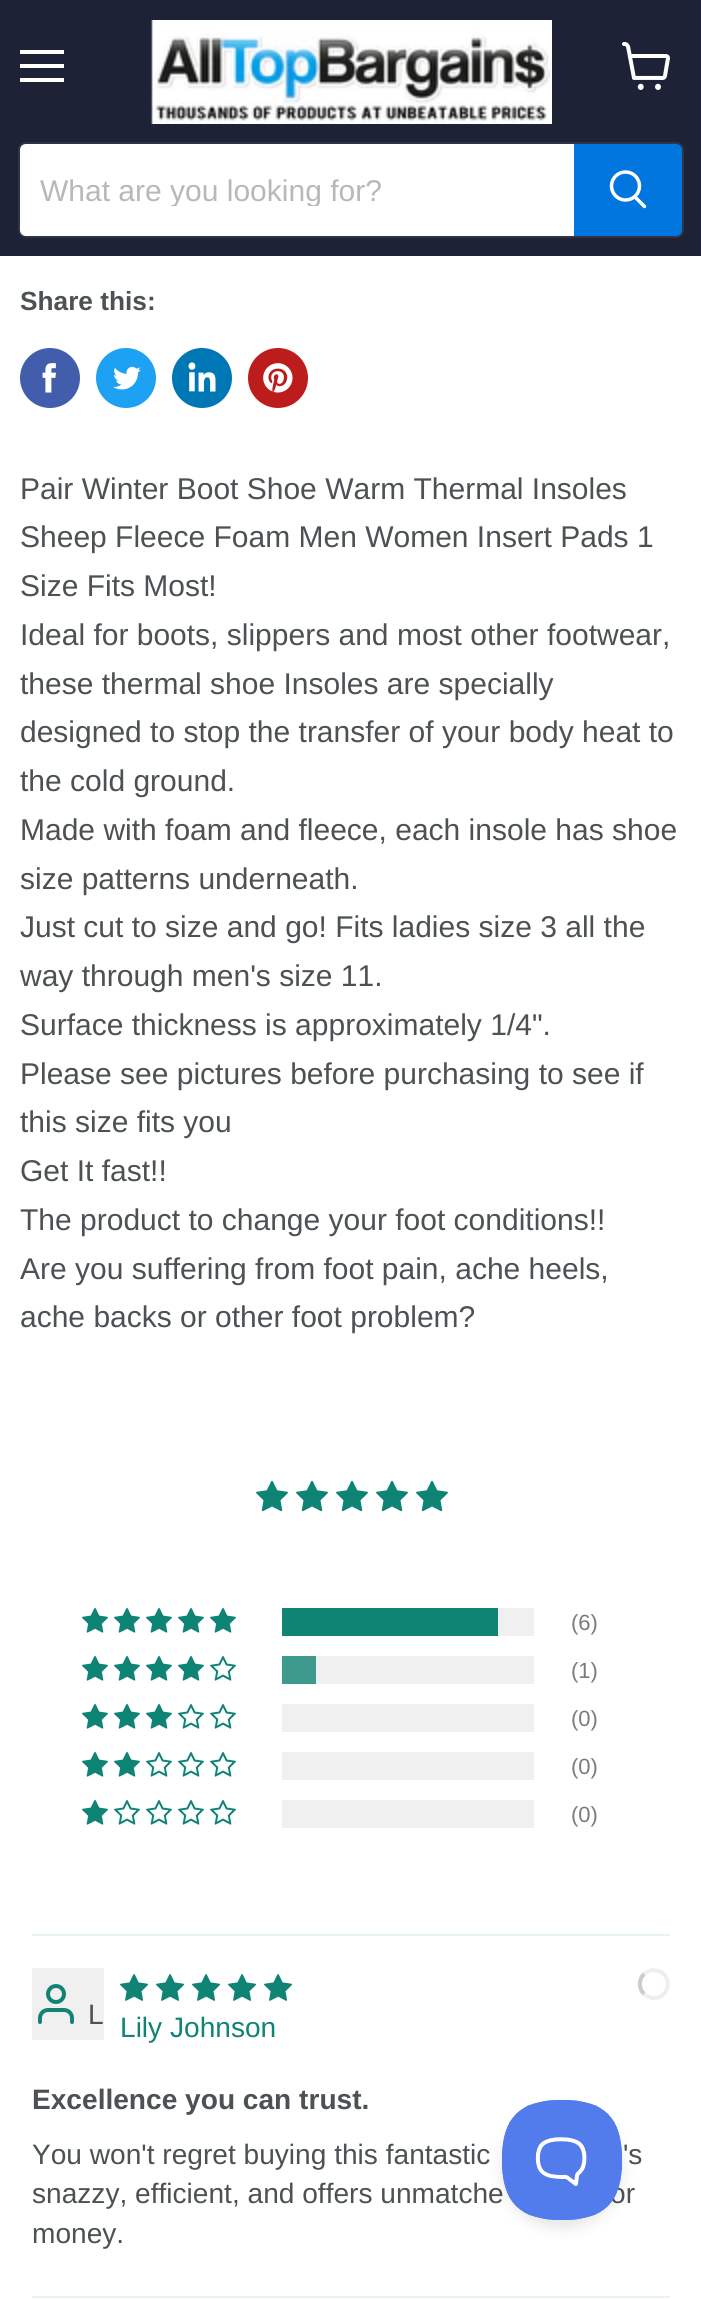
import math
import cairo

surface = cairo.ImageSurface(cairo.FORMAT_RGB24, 701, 2299)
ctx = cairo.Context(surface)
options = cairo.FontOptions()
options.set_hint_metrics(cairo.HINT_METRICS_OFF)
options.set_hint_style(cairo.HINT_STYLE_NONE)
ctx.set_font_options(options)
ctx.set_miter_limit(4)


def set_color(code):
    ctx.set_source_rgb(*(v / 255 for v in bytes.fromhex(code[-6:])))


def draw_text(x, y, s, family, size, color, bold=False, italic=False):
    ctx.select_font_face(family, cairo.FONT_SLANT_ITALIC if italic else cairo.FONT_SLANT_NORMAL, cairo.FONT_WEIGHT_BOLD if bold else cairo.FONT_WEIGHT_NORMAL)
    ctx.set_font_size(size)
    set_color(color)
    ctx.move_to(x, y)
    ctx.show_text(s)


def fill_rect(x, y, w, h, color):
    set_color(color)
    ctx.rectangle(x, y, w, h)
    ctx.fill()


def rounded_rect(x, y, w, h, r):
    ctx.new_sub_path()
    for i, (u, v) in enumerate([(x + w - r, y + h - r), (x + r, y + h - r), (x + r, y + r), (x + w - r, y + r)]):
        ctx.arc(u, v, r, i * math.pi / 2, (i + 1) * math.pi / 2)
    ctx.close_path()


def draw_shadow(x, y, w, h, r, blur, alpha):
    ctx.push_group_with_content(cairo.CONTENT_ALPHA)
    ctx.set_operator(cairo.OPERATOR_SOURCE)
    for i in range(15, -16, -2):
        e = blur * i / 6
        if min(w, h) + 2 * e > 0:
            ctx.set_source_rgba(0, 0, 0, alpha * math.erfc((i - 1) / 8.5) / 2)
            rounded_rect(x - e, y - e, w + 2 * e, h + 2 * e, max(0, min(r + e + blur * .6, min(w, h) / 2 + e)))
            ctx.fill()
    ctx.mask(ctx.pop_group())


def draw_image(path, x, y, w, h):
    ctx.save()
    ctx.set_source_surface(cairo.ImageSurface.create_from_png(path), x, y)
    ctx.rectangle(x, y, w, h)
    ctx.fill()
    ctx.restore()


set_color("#ffffff")
ctx.paint()
fill_rect(0, 0, 701, 256, "#1d2236")
fill_rect(20, 50, 44, 4, "#ffffff")
fill_rect(20, 64, 44, 4, "#ffffff")
fill_rect(20, 78, 44, 4, "#ffffff")
draw_image("assets/img1.png", 622, 42, 48, 48)
draw_image("assets/img2.png", 151, 20, 401, 104)
rounded_rect(19, 143, 664, 94, 7)
ctx.set_source_rgba(0.502, 0.502, 0.502, 0.2)
ctx.stroke()
set_color("#ffffff")
ctx.new_path()
ctx.move_to(26, 144)
ctx.line_to(574, 144)
ctx.line_to(574, 236)
ctx.line_to(26, 236)
ctx.curve_to(22.5, 236, 20, 233.5, 20, 230)
ctx.line_to(20, 150)
ctx.curve_to(20, 146.5, 22.5, 144, 26, 144)
ctx.close_path()
ctx.fill()
ctx.save()
ctx.rectangle(40, 172, 514, 34)
ctx.clip()
draw_text(40, 201, "What are you looking for?", "Liberation Sans", 30, "#b8b8b8")
ctx.restore()
set_color("#0076de")
ctx.new_path()
ctx.move_to(575, 145)
ctx.line_to(676, 145)
ctx.curve_to(679, 145, 681, 147, 681, 150)
ctx.line_to(681, 230)
ctx.curve_to(681, 233, 679, 235, 676, 235)
ctx.line_to(575, 235)
ctx.close_path()
ctx.fill_preserve()
ctx.stroke()
ctx.new_path()
ctx.move_to(644.5, 206.5)
ctx.line_to(635, 197)
set_color("#ffffff")
ctx.set_line_width(3.5)
ctx.set_line_cap(cairo.LINE_CAP_ROUND)
ctx.stroke()
ctx.arc(625.5, 186, 14, 0, 2 * math.pi)
ctx.set_line_cap(cairo.LINE_CAP_BUTT)
ctx.stroke()
draw_text(20, 310, "Share this:", "Liberation Sans", 26.25, "#4c5154", bold=True)
set_color("#425dab")
ctx.new_path()
ctx.arc(50, 378, 30, 0, 2 * math.pi)
ctx.fill()
draw_image("assets/img3.png", 42, 363, 14, 30)
set_color("#1da1f2")
ctx.arc(126, 378, 30, 0, 2 * math.pi)
ctx.fill()
draw_image("assets/img4.png", 113, 366, 28, 24)
set_color("#0077b5")
ctx.arc(202, 378, 30, 0, 2 * math.pi)
ctx.fill()
draw_image("assets/img5.png", 188, 362, 28, 30)
set_color("#bd1c1c")
ctx.arc(278, 378, 30, 0, 2 * math.pi)
ctx.fill()
draw_image("assets/img6.png", 263, 363, 30, 30)
draw_text(20, 499, "Pair Winter Boot Shoe Warm Thermal Insoles", "Liberation Sans", 30, "#4c5154")
draw_text(20, 547, "Sheep Fleece Foam Men Women Insert Pads 1", "Liberation Sans", 30, "#4c5154")
draw_text(20, 596, "Size Fits Most!", "Liberation Sans", 30, "#4c5154")
draw_text(20, 645, "Ideal for boots, slippers and most other footwear,", "Liberation Sans", 30, "#4c5154")
draw_text(20, 694, "these thermal shoe Insoles are specially", "Liberation Sans", 30, "#4c5154")
draw_text(20, 742, "designed to stop the transfer of your body heat to", "Liberation Sans", 30, "#4c5154")
draw_text(20, 791, "the cold ground.", "Liberation Sans", 30, "#4c5154")
draw_text(20, 840, "Made with foam and fleece, each insole has shoe", "Liberation Sans", 30, "#4c5154")
draw_text(20, 889, "size patterns underneath.", "Liberation Sans", 30, "#4c5154")
draw_text(20, 937, "Just cut to size and go! Fits ladies size 3 all the", "Liberation Sans", 30, "#4c5154")
draw_text(20, 986, "way through men's size 11.", "Liberation Sans", 30, "#4c5154")
draw_text(20, 1035, "Surface thickness is approximately 1/4\".", "Liberation Sans", 30, "#4c5154")
draw_text(20, 1084, "Please see pictures before purchasing to see if", "Liberation Sans", 30, "#4c5154")
draw_text(20, 1132, "this size fits you", "Liberation Sans", 30, "#4c5154")
draw_text(20, 1181, "Get It fast!!", "Liberation Sans", 30, "#4c5154")
draw_text(20, 1230, "The product to change your foot conditions!!", "Liberation Sans", 30, "#4c5154")
draw_text(20, 1279, "Are you suffering from foot pain, ache heels,", "Liberation Sans", 30, "#4c5154")
draw_text(20, 1327, "ache backs or other foot problem?", "Liberation Sans", 30, "#4c5154")
draw_image("assets/img7.png", 256, 1480, 32, 32)
draw_image("assets/img7.png", 296, 1480, 32, 32)
draw_image("assets/img7.png", 336, 1480, 32, 32)
draw_image("assets/img7.png", 376, 1480, 32, 32)
draw_image("assets/img7.png", 416, 1480, 32, 32)
draw_image("assets/img8.png", 82, 1607, 26, 26)
draw_image("assets/img8.png", 114, 1607, 26, 26)
draw_image("assets/img8.png", 146, 1607, 26, 26)
draw_image("assets/img8.png", 178, 1607, 26, 26)
draw_image("assets/img8.png", 210, 1607, 26, 26)
fill_rect(498, 1608, 36, 28, "#f0f0f0")
fill_rect(282, 1608, 216, 28, "#108474")
draw_text(571, 1630, "(6)", "Liberation Sans", 22, "#7b7b7b")
draw_image("assets/img8.png", 82, 1655, 26, 26)
draw_image("assets/img8.png", 114, 1655, 26, 26)
draw_image("assets/img8.png", 146, 1655, 26, 26)
draw_image("assets/img8.png", 178, 1655, 26, 26)
draw_image("assets/img9.png", 210, 1655, 26, 26)
fill_rect(316, 1656, 218, 28, "#f0f0f0")
fill_rect(282, 1656, 34, 28, "#3d9a8d")
draw_text(571, 1678, "(1)", "Liberation Sans", 22, "#7b7b7b")
draw_image("assets/img8.png", 82, 1703, 26, 26)
draw_image("assets/img8.png", 114, 1703, 26, 26)
draw_image("assets/img8.png", 146, 1703, 26, 26)
draw_image("assets/img9.png", 178, 1703, 26, 26)
draw_image("assets/img9.png", 210, 1703, 26, 26)
fill_rect(282, 1704, 252, 28, "#f0f0f0")
draw_text(571, 1726, "(0)", "Liberation Sans", 22, "#7b7b7b")
draw_image("assets/img8.png", 82, 1751, 26, 26)
draw_image("assets/img8.png", 114, 1751, 26, 26)
draw_image("assets/img9.png", 146, 1751, 26, 26)
draw_image("assets/img9.png", 178, 1751, 26, 26)
draw_image("assets/img9.png", 210, 1751, 26, 26)
fill_rect(282, 1752, 252, 28, "#f0f0f0")
draw_text(571, 1774, "(0)", "Liberation Sans", 22, "#7b7b7b")
draw_image("assets/img8.png", 82, 1799, 26, 26)
draw_image("assets/img9.png", 114, 1799, 26, 26)
draw_image("assets/img9.png", 146, 1799, 26, 26)
draw_image("assets/img9.png", 178, 1799, 26, 26)
draw_image("assets/img9.png", 210, 1799, 26, 26)
fill_rect(282, 1800, 252, 28, "#f0f0f0")
draw_text(571, 1822, "(0)", "Liberation Sans", 22, "#7b7b7b")
fill_rect(32, 1934, 638, 2, "#e7f3f1")
draw_image("assets/img10.png", 120, 1974, 29, 27)
draw_image("assets/img10.png", 156, 1974, 29, 27)
draw_image("assets/img10.png", 192, 1974, 29, 27)
draw_image("assets/img10.png", 228, 1974, 29, 27)
draw_image("assets/img10.png", 264, 1974, 29, 27)
ctx.new_path()
ctx.move_to(644, 1974)
ctx.curve_to(647.5, 1971, 652, 1969.5, 656.5, 1970.5)
ctx.curve_to(673, 1973.5, 670.5, 1998, 654, 1998)
ctx.curve_to(650.5, 1998, 646.5, 1996.5, 644, 1994)
set_color("#eeeeee")
ctx.set_line_width(4)
ctx.stroke()
ctx.new_path()
ctx.move_to(644, 1994)
ctx.curve_to(638.5, 1988.5, 638.5, 1979.5, 644, 1974)
set_color("#cccccc")
ctx.stroke()
fill_rect(32, 1968, 72, 72, "#f0f0f0")
draw_image("assets/img11.png", 38, 1984, 36, 40)
draw_text(88, 2024, "L", "Liberation Sans", 28.1, "#4c5154")
draw_text(120, 2037, "Lily Johnson", "Liberation Sans", 28.1, "#108474")
draw_text(32, 2109, "Excellence you can trust.", "Liberation Sans", 28.1, "#4c5154", bold=True)
draw_text(32, 2164, "You won't regret buying this fantastic", "Liberation Sans", 28.1, "#4c5154")
draw_text(623, 2164, "'s", "Liberation Sans", 28.1, "#4c5154")
draw_text(32, 2203, "snazzy, efficient, and offers unmatche", "Liberation Sans", 28.1, "#4c5154")
draw_text(610, 2203, "or", "Liberation Sans", 28.1, "#4c5154")
draw_text(32, 2243, "money.", "Liberation Sans", 28.1, "#4c5154")
fill_rect(32, 2296, 638, 2, "#e7f3f1")
set_color("#000000")
draw_shadow(502, 2108, 120, 120, 60, 7, 0.1)
draw_image("assets/img12.png", 502, 2100, 120, 120)
surface.write_to_png("output.png")
